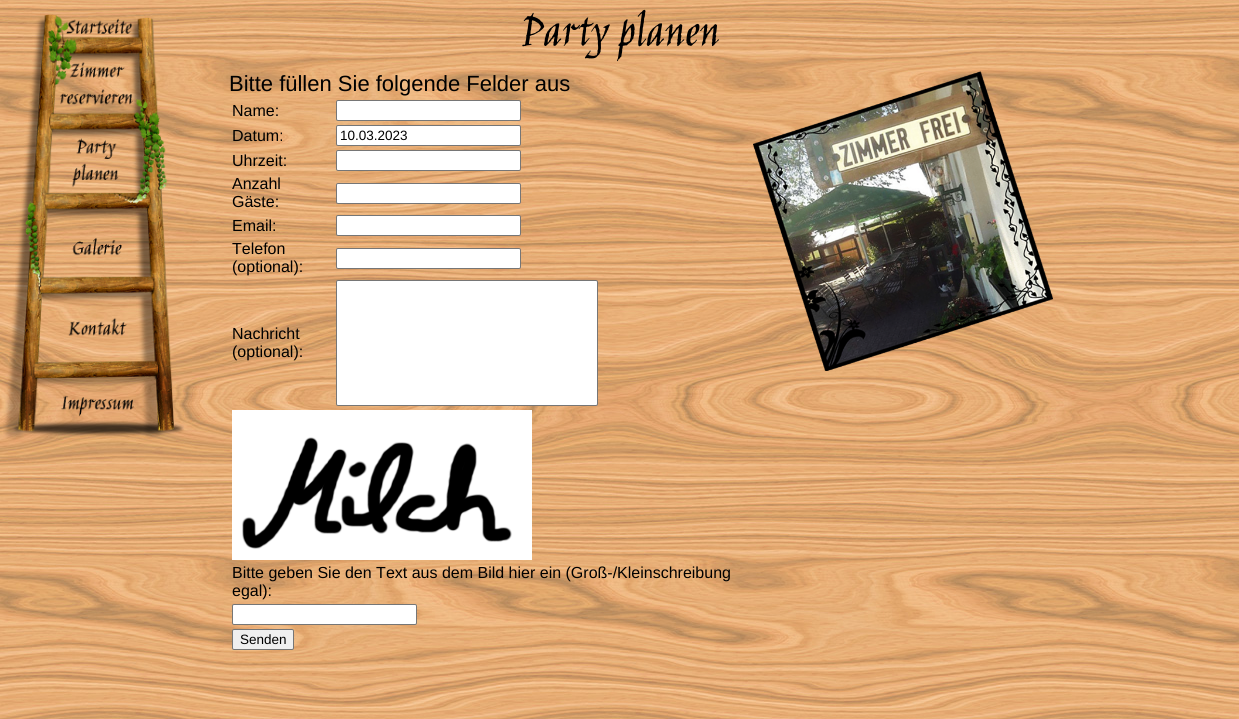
import math
import cairo

surface = cairo.ImageSurface(cairo.FORMAT_RGB24, 1239, 719)
ctx = cairo.Context(surface)
options = cairo.FontOptions()
options.set_hint_metrics(cairo.HINT_METRICS_OFF)
options.set_hint_style(cairo.HINT_STYLE_NONE)
ctx.set_font_options(options)
ctx.set_miter_limit(4)


def set_color(code):
    ctx.set_source_rgb(*(v / 255 for v in bytes.fromhex(code[-6:])))


def draw_text(x, y, s, family, size, color, bold=False, italic=False):
    ctx.select_font_face(family, cairo.FONT_SLANT_ITALIC if italic else cairo.FONT_SLANT_NORMAL, cairo.FONT_WEIGHT_BOLD if bold else cairo.FONT_WEIGHT_NORMAL)
    ctx.set_font_size(size)
    set_color(color)
    ctx.move_to(x, y)
    ctx.show_text(s)


def rounded_rect(x, y, w, h, r):
    ctx.new_sub_path()
    for i, (u, v) in enumerate([(x + w - r, y + h - r), (x + r, y + h - r), (x + r, y + r), (x + w - r, y + r)]):
        ctx.arc(u, v, r, i * math.pi / 2, (i + 1) * math.pi / 2)
    ctx.close_path()


def draw_image(path, x, y, w, h):
    ctx.save()
    ctx.set_source_surface(cairo.ImageSurface.create_from_png(path), x, y)
    ctx.rectangle(x, y, w, h)
    ctx.fill()
    ctx.restore()


set_color("#ffffff")
ctx.paint()
draw_image("assets/img1.png", 0, 0, 1239, 719)
draw_image("assets/img2.png", 34, 14, 121, 31)
draw_image("assets/img3.png", 28, 45, 132, 78)
draw_image("assets/img4.png", 21, 123, 147, 80)
draw_image("assets/img5.png", 15, 203, 152, 85)
draw_image("assets/img6.png", 9, 288, 163, 78)
draw_image("assets/img7.png", 3, 366, 181, 73)
draw_text(520, 45, "Party planen", "Jim Nightshade", 50, "#000000")
draw_text(229, 91, "Bitte füllen Sie folgende Felder aus", "Liberation Sans", 22, "#000000")
draw_text(232, 116, "Name:", "Liberation Sans", 16, "#000000")
set_color("#ffffff")
rounded_rect(336.5, 100.5, 184, 20, 1.5)
ctx.fill_preserve()
set_color("#767676")
ctx.set_line_width(1)
ctx.stroke()
draw_text(232, 141, "Datum:", "Liberation Sans", 16, "#000000")
set_color("#ffffff")
rounded_rect(336.5, 125.5, 184, 20, 1.5)
ctx.fill_preserve()
set_color("#767676")
ctx.stroke()
draw_text(340, 140, "10.03.2023", "Liberation Sans", 13.5, "#000000")
draw_text(232, 166, "Uhrzeit:", "Liberation Sans", 16, "#000000")
set_color("#ffffff")
rounded_rect(336.5, 150.5, 184, 20, 1.5)
ctx.fill_preserve()
set_color("#767676")
ctx.stroke()
draw_text(232, 189, "Anzahl", "Liberation Sans", 16, "#000000")
draw_text(232, 207, "Gäste:", "Liberation Sans", 16, "#000000")
set_color("#ffffff")
rounded_rect(336.5, 183.5, 184, 20, 1.5)
ctx.fill_preserve()
set_color("#767676")
ctx.stroke()
draw_text(232, 231, "Email:", "Liberation Sans", 16, "#000000")
set_color("#ffffff")
rounded_rect(336.5, 215.5, 184, 20, 1.5)
ctx.fill_preserve()
set_color("#767676")
ctx.stroke()
draw_text(232, 254, "Telefon", "Liberation Sans", 16, "#000000")
draw_text(232, 272, "(optional):", "Liberation Sans", 16, "#000000")
set_color("#ffffff")
rounded_rect(336.5, 248.5, 184, 20, 1.5)
ctx.fill_preserve()
set_color("#767676")
ctx.stroke()
draw_text(232, 339, "Nachricht", "Liberation Sans", 16, "#000000")
draw_text(232, 357, "(optional):", "Liberation Sans", 16, "#000000")
set_color("#ffffff")
rounded_rect(336.5, 280.5, 261, 125, 1.5)
ctx.fill_preserve()
set_color("#767676")
ctx.stroke()
draw_image("assets/img8.png", 232, 410, 300, 150)
draw_text(232, 578, "Bitte geben Sie den Text aus dem Bild hier ein (Groß-/Kleinschreibung", "Liberation Sans", 16, "#000000")
draw_text(232, 596, "egal):", "Liberation Sans", 16, "#000000")
set_color("#ffffff")
rounded_rect(232.5, 604.5, 184, 20, 1.5)
ctx.fill_preserve()
set_color("#767676")
ctx.stroke()
set_color("#efefef")
rounded_rect(232.5, 629.5, 61, 20, 1.5)
ctx.fill_preserve()
set_color("#767676")
ctx.stroke()
draw_text(240, 644, "Senden", "Liberation Sans", 13.5, "#000000")
draw_image("assets/img9.png", 753, 71, 300, 300)
surface.write_to_png("output.png")
